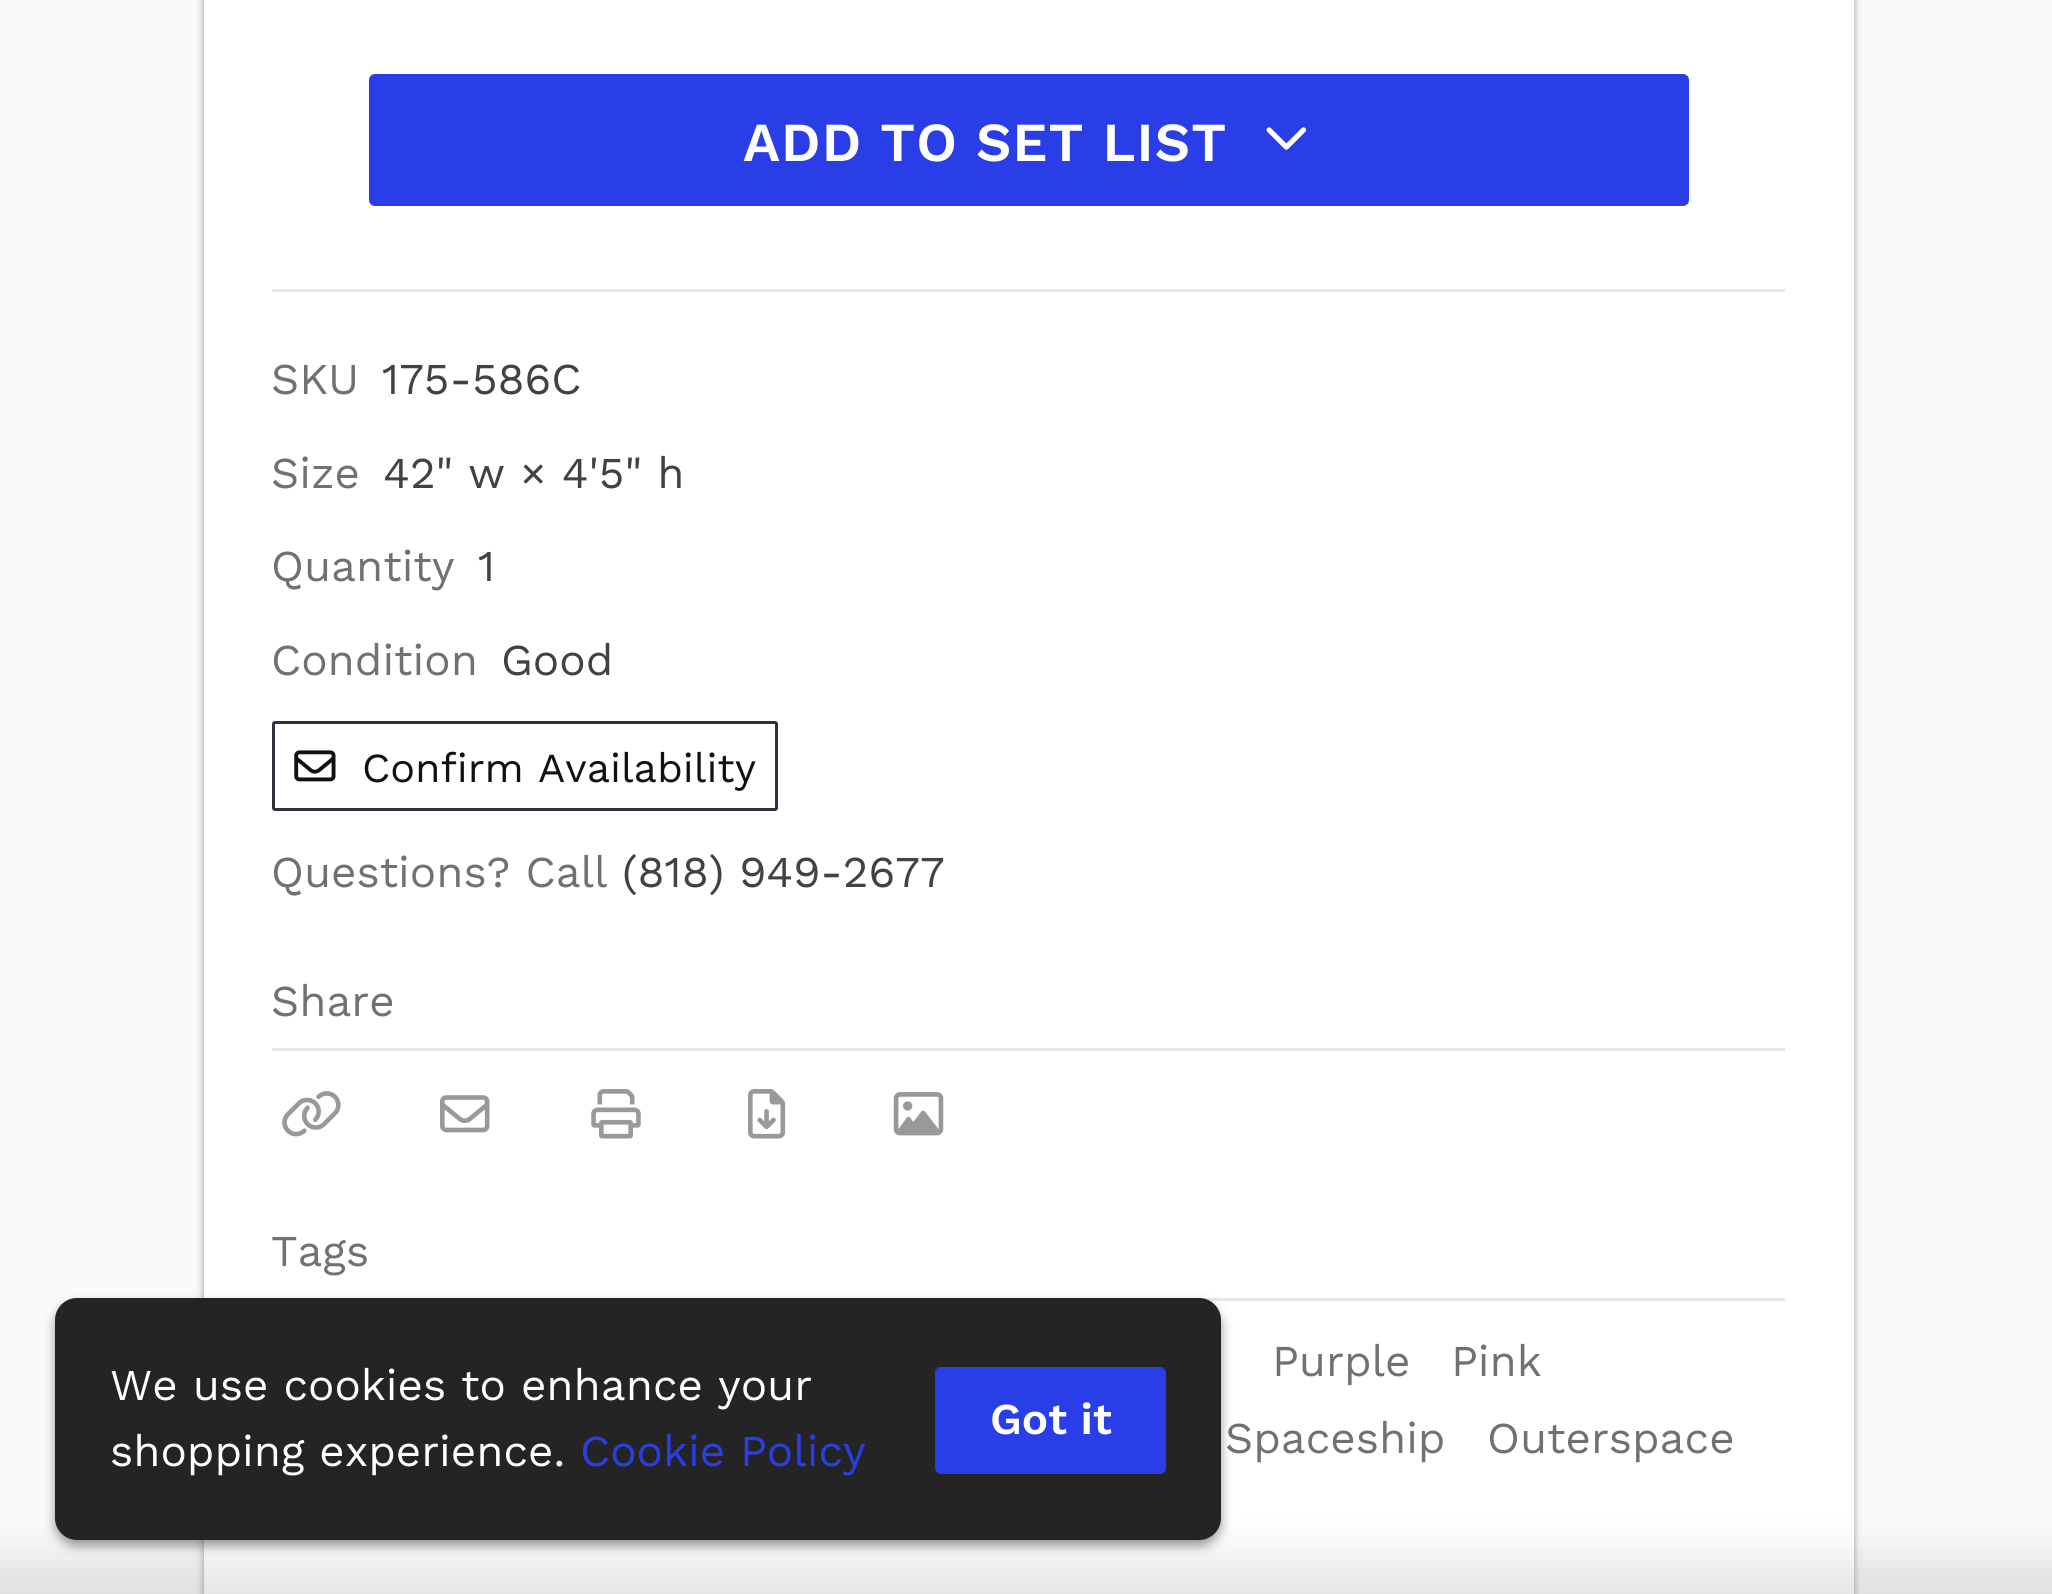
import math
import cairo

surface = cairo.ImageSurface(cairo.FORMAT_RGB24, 2052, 1594)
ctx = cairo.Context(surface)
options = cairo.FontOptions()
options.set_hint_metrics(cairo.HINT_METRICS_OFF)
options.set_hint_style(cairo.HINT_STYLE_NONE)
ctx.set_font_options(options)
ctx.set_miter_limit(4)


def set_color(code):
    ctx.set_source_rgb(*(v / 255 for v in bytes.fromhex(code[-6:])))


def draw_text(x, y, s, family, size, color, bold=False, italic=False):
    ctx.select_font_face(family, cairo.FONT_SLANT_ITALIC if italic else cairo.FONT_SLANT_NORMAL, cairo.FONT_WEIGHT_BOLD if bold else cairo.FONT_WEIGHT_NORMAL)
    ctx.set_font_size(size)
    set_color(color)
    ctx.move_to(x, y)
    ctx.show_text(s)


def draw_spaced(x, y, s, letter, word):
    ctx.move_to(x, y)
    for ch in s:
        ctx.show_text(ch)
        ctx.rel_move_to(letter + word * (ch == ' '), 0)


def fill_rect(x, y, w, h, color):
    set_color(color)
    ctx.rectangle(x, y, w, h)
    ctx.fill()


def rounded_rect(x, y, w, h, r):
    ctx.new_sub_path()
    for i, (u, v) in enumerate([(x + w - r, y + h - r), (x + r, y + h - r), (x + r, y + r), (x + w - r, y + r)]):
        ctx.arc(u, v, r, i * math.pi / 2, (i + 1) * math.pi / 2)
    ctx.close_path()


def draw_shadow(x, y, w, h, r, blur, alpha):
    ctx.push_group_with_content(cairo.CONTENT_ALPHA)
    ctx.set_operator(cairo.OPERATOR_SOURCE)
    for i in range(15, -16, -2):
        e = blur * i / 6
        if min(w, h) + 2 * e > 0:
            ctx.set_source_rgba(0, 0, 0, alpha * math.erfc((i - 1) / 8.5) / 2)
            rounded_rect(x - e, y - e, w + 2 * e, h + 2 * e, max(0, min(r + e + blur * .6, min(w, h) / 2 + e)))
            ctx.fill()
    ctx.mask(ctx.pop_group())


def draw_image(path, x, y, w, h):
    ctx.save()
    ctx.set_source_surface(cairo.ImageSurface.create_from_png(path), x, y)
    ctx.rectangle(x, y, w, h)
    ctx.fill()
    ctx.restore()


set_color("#fafafa")
ctx.paint()
set_color("#3c4043")
draw_shadow(201, -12, 1655, 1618, 0, 4, 0.15)
draw_shadow(204, -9, 1650, 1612, 0, 3, 0.3)
fill_rect(204, 0, 1650, 1594, "#ffffff")
set_color("#2a3ee8")
rounded_rect(369, 74, 1320, 132, 6)
ctx.fill()
ctx.select_font_face("Work Sans SemiBold")
ctx.set_font_size(55)
set_color("#ffffff")
draw_spaced(743, 161, "ADD TO SET LIST", 1.1, 0)
draw_image("assets/img1.png", 1266, 127, 40, 23)
fill_rect(272, 289, 1513, 3, "#e6e6e6")
draw_text(271, 394, "SKU", "Work Sans", 44, "#717171")
draw_text(382, 394, "175-586C", "Work Sans", 44, "#424242")
draw_text(271, 488, "Size", "Work Sans", 44, "#717171")
draw_text(383, 488, "42\" w × 4'5\" h", "Work Sans", 44, "#424242")
draw_text(271, 581, "Quantity", "Work Sans", 44, "#717171")
draw_text(478, 581, "1", "Work Sans", 44, "#424242")
draw_text(271, 675, "Condition", "Work Sans", 44, "#717171")
draw_text(501, 675, "Good", "Work Sans", 44, "#424242")
rounded_rect(273.5, 722.5, 503, 87, 1.5)
set_color("#30313d")
ctx.set_line_width(3)
ctx.stroke()
draw_image("assets/img2.png", 294, 750, 42, 32)
draw_text(362, 782, "Confirm Availability", "Work Sans", 41.25, "#111111")
draw_text(271, 887, "Questions? Call", "Work Sans", 44, "#717171")
draw_text(622, 887, "(818) 949-2677", "Work Sans", 44, "#424242")
fill_rect(272, 1048, 1513, 3, "#e6e6e6")
draw_text(271, 1016, "Share", "Work Sans", 44, "#717171")
draw_image("assets/img3.png", 282, 1091, 59, 46)
draw_image("assets/img4.png", 440, 1095, 50, 38)
draw_image("assets/img5.png", 591, 1089, 50, 50)
draw_image("assets/img6.png", 748, 1089, 38, 50)
draw_image("assets/img7.png", 893, 1092, 51, 44)
fill_rect(1199, 1298, 586, 3, "#e6e6e6")
draw_text(271, 1266, "Tags", "Work Sans", 44, "#717171")
draw_text(1272, 1376, "Purple", "Work Sans", 44, "#717171")
draw_text(1451, 1376, "Pink", "Work Sans", 44, "#717171")
draw_text(1225, 1453, "Spaceship", "Work Sans", 44, "#717171")
draw_text(1487, 1453, "Outerspace", "Work Sans", 44, "#717171")
set_color("#323232")
draw_shadow(55, 1304, 1166, 242, 22, 5.5, 0.5)
set_color("#000000")
draw_shadow(-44, 1557, 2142, 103, 0, 22, 0.1)
set_color("#242424")
rounded_rect(55, 1298, 1166, 242, 22)
ctx.fill()
draw_text(110, 1400, "We use cookies to enhance your", "Work Sans", 44, "#ffffff")
draw_text(110, 1466, "shopping experience.", "Work Sans", 44, "#ffffff")
draw_text(580, 1466, "Cookie Policy", "Work Sans", 44, "#2a3ee8")
rounded_rect(935, 1367, 231, 107, 6)
ctx.fill()
draw_text(990, 1434, "Got it", "Work Sans SemiBold", 44, "#ffffff")
surface.write_to_png("output.png")
